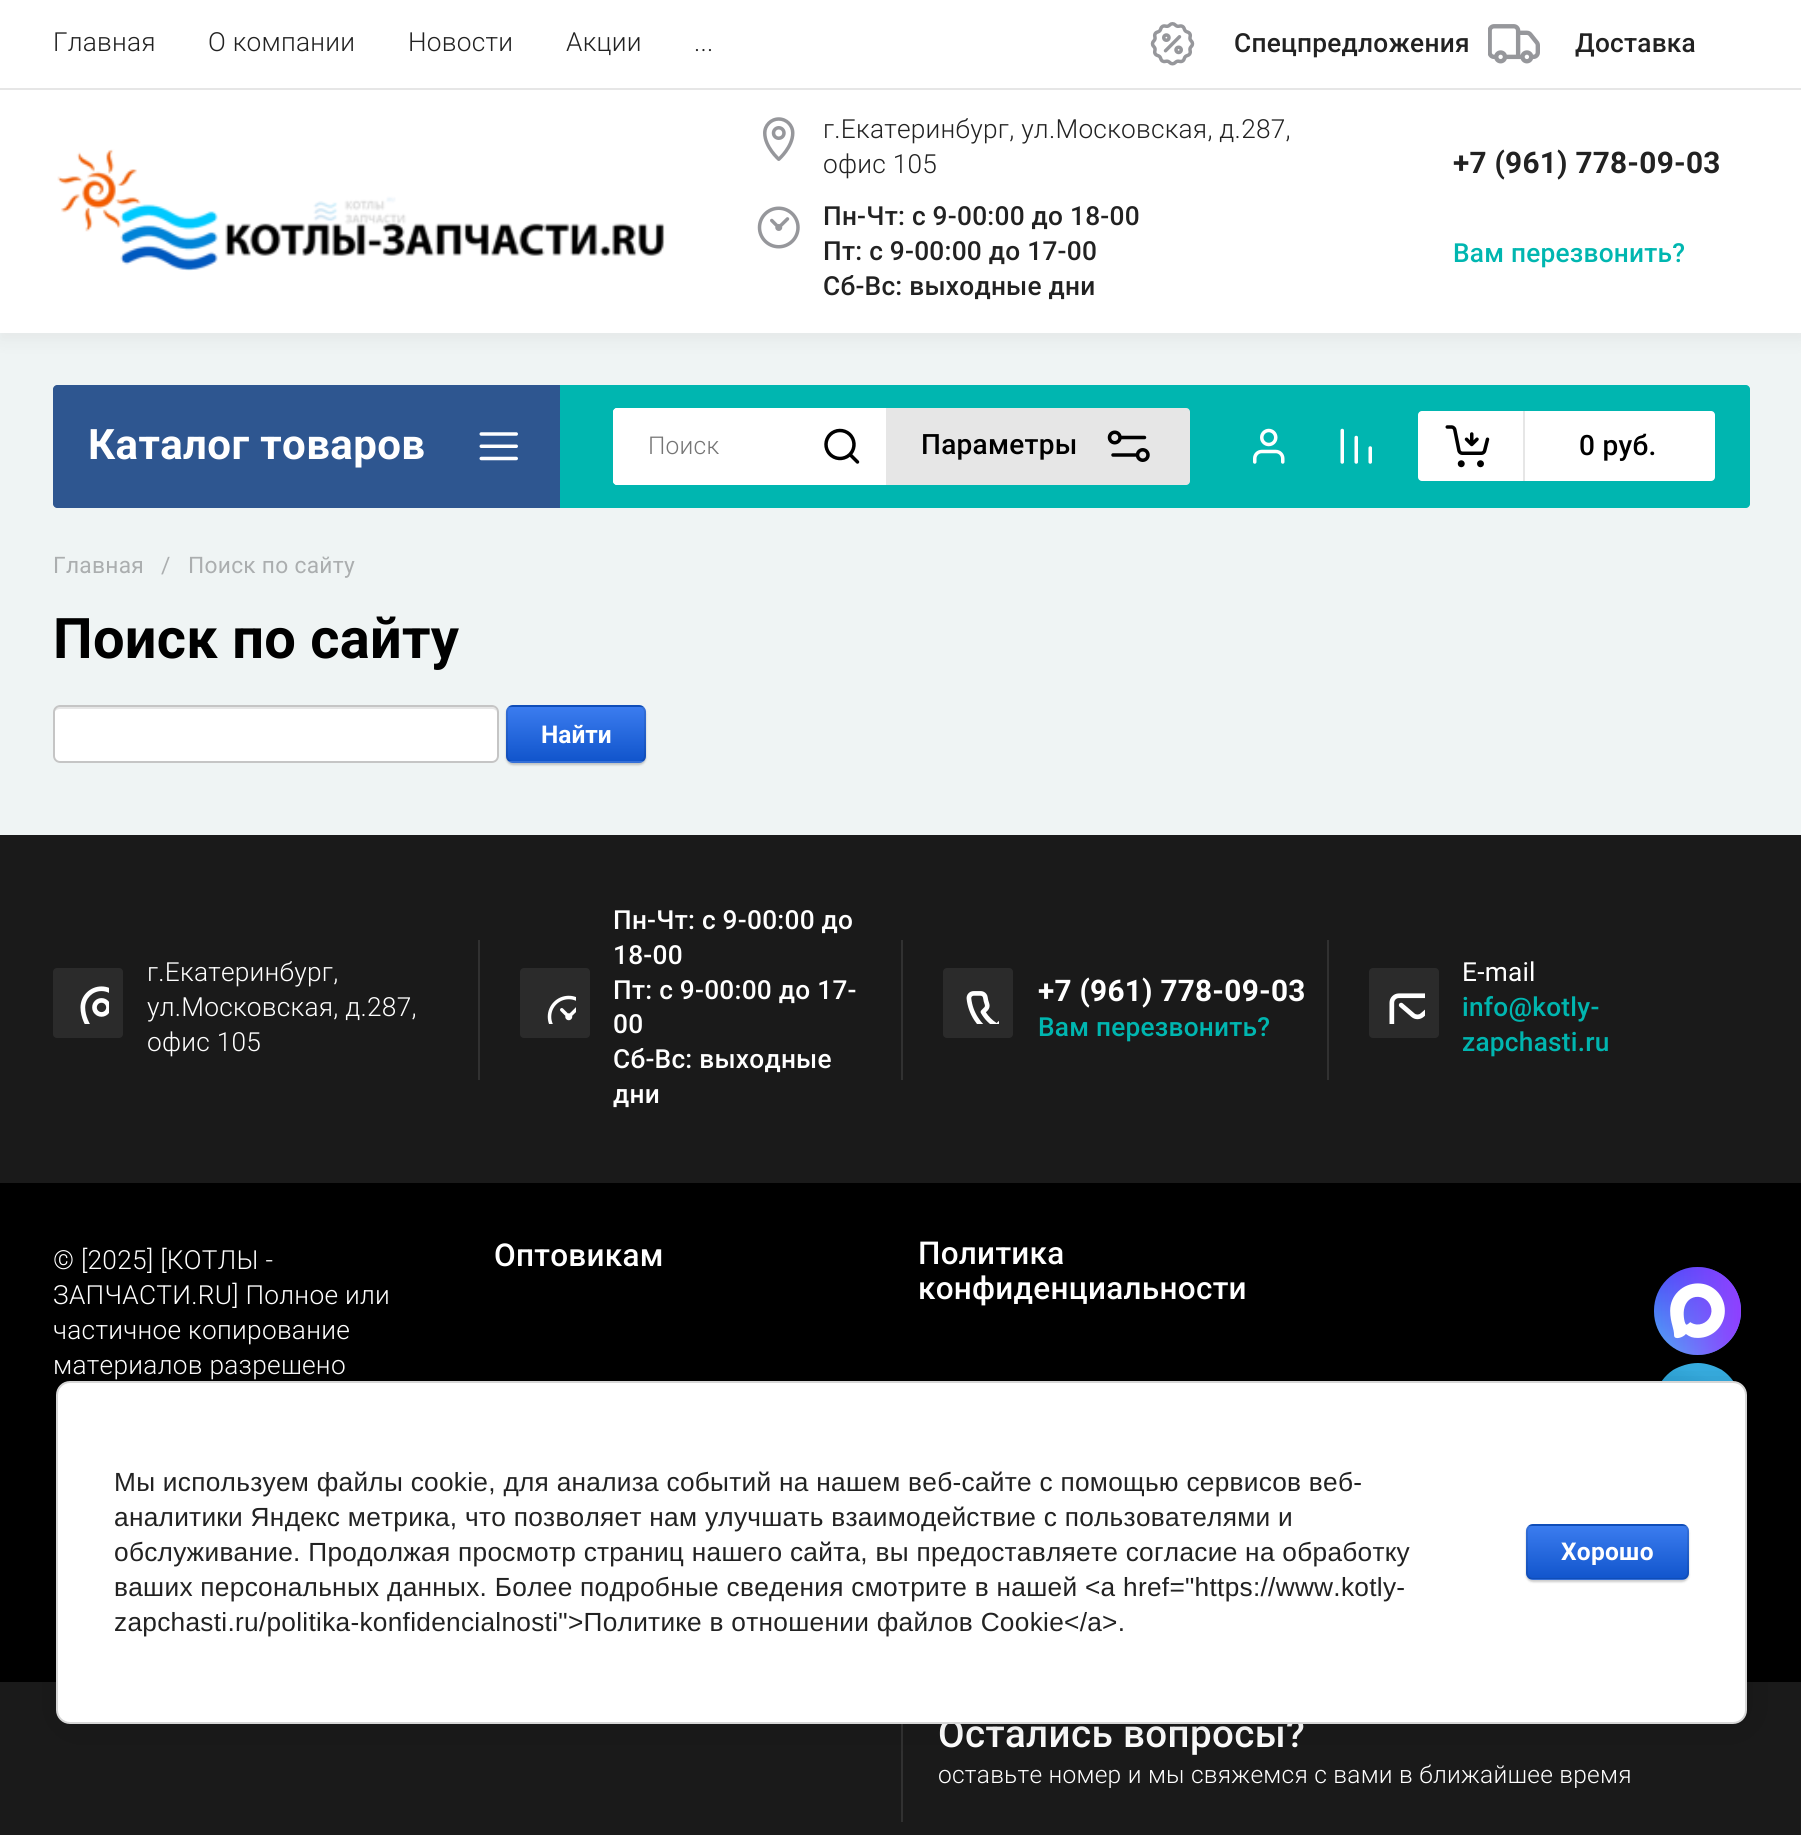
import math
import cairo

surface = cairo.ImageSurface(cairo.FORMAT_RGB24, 1801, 1835)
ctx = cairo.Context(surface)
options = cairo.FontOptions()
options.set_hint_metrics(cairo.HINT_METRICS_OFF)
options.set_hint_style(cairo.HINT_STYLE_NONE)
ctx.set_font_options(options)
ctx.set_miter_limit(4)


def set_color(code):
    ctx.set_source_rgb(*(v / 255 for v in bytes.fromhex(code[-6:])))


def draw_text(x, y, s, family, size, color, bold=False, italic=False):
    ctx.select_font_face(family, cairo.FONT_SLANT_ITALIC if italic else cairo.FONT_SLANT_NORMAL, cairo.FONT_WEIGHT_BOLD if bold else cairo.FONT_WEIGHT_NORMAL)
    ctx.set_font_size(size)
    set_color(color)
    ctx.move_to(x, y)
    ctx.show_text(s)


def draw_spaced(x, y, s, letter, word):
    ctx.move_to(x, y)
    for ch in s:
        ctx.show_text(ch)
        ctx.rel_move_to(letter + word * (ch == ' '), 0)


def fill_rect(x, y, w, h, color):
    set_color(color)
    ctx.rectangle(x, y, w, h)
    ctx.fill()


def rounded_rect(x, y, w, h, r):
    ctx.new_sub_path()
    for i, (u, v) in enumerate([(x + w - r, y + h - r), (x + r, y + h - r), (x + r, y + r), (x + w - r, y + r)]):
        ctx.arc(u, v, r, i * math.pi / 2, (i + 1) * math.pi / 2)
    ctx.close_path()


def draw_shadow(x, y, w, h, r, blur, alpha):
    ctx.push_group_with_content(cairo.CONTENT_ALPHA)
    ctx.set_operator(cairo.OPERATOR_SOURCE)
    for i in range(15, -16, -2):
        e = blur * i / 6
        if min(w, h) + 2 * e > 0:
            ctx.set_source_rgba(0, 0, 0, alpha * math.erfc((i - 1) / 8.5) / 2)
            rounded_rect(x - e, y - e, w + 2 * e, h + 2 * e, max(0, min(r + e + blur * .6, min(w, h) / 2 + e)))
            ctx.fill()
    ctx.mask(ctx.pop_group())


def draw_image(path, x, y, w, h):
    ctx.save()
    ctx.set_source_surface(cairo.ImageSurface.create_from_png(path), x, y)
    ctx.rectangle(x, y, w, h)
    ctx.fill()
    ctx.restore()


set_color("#eff4f4")
ctx.paint()
set_color("#000000")
draw_shadow(0, 7, 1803, 333, 0, 9, 0.05)
fill_rect(0, 0, 1801, 333, "#ffffff")
ctx.select_font_face("Roboto Light")
ctx.set_font_size(26.25)
set_color("#222222")
draw_spaced(53, 51, "Главная", 0.25, 0)
draw_spaced(208, 51, "О компании", 0.25, 0)
draw_spaced(408, 51, "Новости", 0.25, 0)
draw_spaced(566, 51, "Акции", 0.25, 0)
draw_spaced(694, 51, "...", 0.25, 0)
draw_image("assets/img1.png", 1150, 22, 45, 44)
ctx.select_font_face("Roboto Medium")
draw_spaced(1234, 52, "Спецпредложения", 0.25, 0)
draw_image("assets/img2.png", 1488, 24, 52, 40)
draw_spaced(1575, 52, "Доставка", 0.25, 0)
fill_rect(0, 88, 1801, 2, "#e6e6e6")
draw_image("assets/img3.png", 57, 149, 608, 122)
draw_image("assets/img4.png", 763, 117, 32, 44)
ctx.select_font_face("Roboto Light")
set_color("#222222")
draw_spaced(823, 138, "г.Екатеринбург, ул.Московская, д.287,", 0.25, 0)
draw_spaced(823, 173, "офис 105", 0.25, 0)
draw_image("assets/img5.png", 757, 206, 43, 43)
ctx.select_font_face("Roboto Medium")
draw_spaced(823, 225, "Пн-Чт: с 9-00:00 до 18-00", 0.25, 0)
draw_spaced(823, 260, "Пт: с 9-00:00 до 17-00", 0.25, 0)
draw_spaced(823, 295, "Сб-Вс: выходные дни", 0.25, 0)
ctx.select_font_face("Roboto", cairo.FONT_SLANT_NORMAL, cairo.FONT_WEIGHT_BOLD)
ctx.set_font_size(29.75)
draw_spaced(1453, 173, "+7 (961) 778-09-03", 0.25, 0)
ctx.select_font_face("Roboto Medium")
ctx.set_font_size(26.25)
set_color("#00b6b0")
draw_spaced(1453, 262, "Вам перезвонить?", 0.25, 0)
set_color("#2e5690")
ctx.new_path()
ctx.move_to(57, 385)
ctx.line_to(560, 385)
ctx.line_to(560, 508)
ctx.line_to(57, 508)
ctx.curve_to(55, 508, 53, 506, 53, 504)
ctx.line_to(53, 389)
ctx.curve_to(53, 387, 55, 385, 57, 385)
ctx.close_path()
ctx.fill()
ctx.select_font_face("Roboto", cairo.FONT_SLANT_NORMAL, cairo.FONT_WEIGHT_BOLD)
ctx.set_font_size(42)
set_color("#ffffff")
draw_spaced(88, 459, "Каталог товаров", 0.4, 0)
draw_image("assets/img6.png", 479, 432, 39, 29)
set_color("#00b6b0")
ctx.new_path()
ctx.move_to(560, 385)
ctx.line_to(1746, 385)
ctx.curve_to(1748, 385, 1750, 387, 1750, 389)
ctx.line_to(1750, 504)
ctx.curve_to(1750, 506, 1748, 508, 1746, 508)
ctx.line_to(560, 508)
ctx.close_path()
ctx.fill()
set_color("#ffffff")
rounded_rect(613, 408, 577, 77, 4)
ctx.fill()
ctx.new_path()
ctx.move_to(617, 408)
ctx.line_to(798, 408)
ctx.line_to(798, 485)
ctx.line_to(617, 485)
ctx.curve_to(615, 485, 613, 483, 613, 481)
ctx.line_to(613, 412)
ctx.curve_to(613, 410, 615, 408, 617, 408)
ctx.close_path()
ctx.fill()
ctx.select_font_face("Roboto Light")
ctx.set_font_size(24.5)
set_color("#757575")
draw_spaced(648, 454, "Поиск", 0.25, 0)
draw_image("assets/img7.png", 824, 428, 36, 36)
ctx.set_source_rgba(0, 0, 0, 0.1)
ctx.new_path()
ctx.move_to(886, 408)
ctx.line_to(1186, 408)
ctx.curve_to(1188, 408, 1190, 410, 1190, 412)
ctx.line_to(1190, 481)
ctx.curve_to(1190, 483, 1188, 485, 1186, 485)
ctx.line_to(886, 485)
ctx.close_path()
ctx.fill()
ctx.select_font_face("Roboto Medium")
ctx.set_font_size(28)
set_color("#000000")
draw_spaced(921, 454, "Параметры", 0.28, 0)
draw_image("assets/img8.png", 1107, 430, 43, 32)
draw_image("assets/img9.png", 1253, 428, 32, 36)
draw_image("assets/img10.png", 1340, 428, 32, 36)
set_color("#ffffff")
rounded_rect(1418, 411, 297, 70, 4)
ctx.fill()
draw_image("assets/img11.png", 1445, 425, 45, 43)
fill_rect(1523, 411, 2, 70, "#e6e6e6")
set_color("#000000")
draw_spaced(1579, 455, "0 руб.", 0.28, 0)
ctx.select_font_face("Roboto")
ctx.set_font_size(22.75)
set_color("#abaeaf")
draw_spaced(53, 573, "Главная", 0.28, 0)
draw_spaced(161, 573, "/", 0.28, 0)
draw_spaced(188, 573, "Поиск по сайту", 0.28, 0)
ctx.select_font_face("Roboto", cairo.FONT_SLANT_NORMAL, cairo.FONT_WEIGHT_BOLD)
ctx.set_font_size(56)
set_color("#000000")
draw_spaced(53, 658, "Поиск по сайту", 0.28, 0)
set_color("#ffffff")
rounded_rect(53, 705, 446, 58, 7)
ctx.fill()
set_color("#e6e6e6")
ctx.new_path()
ctx.move_to(60, 709)
ctx.line_to(492, 709)
ctx.curve_to(495, 709, 497, 711, 497, 714)
ctx.curve_to(497, 711, 496, 707, 492, 707)
ctx.line_to(59, 707)
ctx.curve_to(55, 707, 54, 711, 54, 714)
ctx.curve_to(54, 711, 57, 709, 60, 709)
ctx.close_path()
ctx.fill()
rounded_rect(54, 706, 444, 56, 6)
set_color("#c5c5c5")
ctx.stroke()
set_color("#000000")
draw_shadow(506, 707, 140, 58, 7, 1, 0.2)
ctx.save()
rounded_rect(506, 705, 140, 58, 7)
ctx.clip()
gradient = cairo.LinearGradient(576, 653, 576, 707)
gradient.add_color_stop_rgba(0, 0.231, 0.486, 0.937, 1)
gradient.add_color_stop_rgba(1, 0.067, 0.333, 0.8, 1)
ctx.set_source(gradient)
ctx.rectangle(506, 705, 140, 2)
ctx.fill()
gradient = cairo.LinearGradient(576, 707, 576, 761)
gradient.add_color_stop_rgba(0, 0.231, 0.486, 0.937, 1)
gradient.add_color_stop_rgba(1, 0.067, 0.333, 0.8, 1)
ctx.set_source(gradient)
ctx.rectangle(506, 707, 140, 54)
ctx.fill()
gradient = cairo.LinearGradient(576, 761, 576, 816)
gradient.add_color_stop_rgba(0, 0.231, 0.486, 0.937, 1)
gradient.add_color_stop_rgba(1, 0.067, 0.333, 0.8, 1)
ctx.set_source(gradient)
ctx.rectangle(506, 761, 140, 2)
ctx.fill()
ctx.restore()
rounded_rect(507, 706, 138, 56, 6)
ctx.set_source_rgba(0, 0, 0, 0.1)
ctx.stroke()
draw_text(541, 743, "Найти", "Roboto", 24.5, "#ffffff", bold=True)
fill_rect(0, 1183, 1801, 499, "#000000")
fill_rect(0, 835, 1801, 348, "#1a1a1a")
set_color("#2b2b2b")
rounded_rect(53, 968, 70, 70, 4)
ctx.fill()
draw_image("assets/img12.png", 80, 986, 29, 38)
ctx.select_font_face("Roboto Light")
ctx.set_font_size(26.25)
set_color("#ffffff")
draw_spaced(147, 981, "г.Екатеринбург,", 0.25, 0)
draw_spaced(147, 1016, "ул.Московская, д.287,", 0.25, 0)
draw_spaced(147, 1051, "офис 105", 0.25, 0)
fill_rect(478, 940, 2, 140, "#313131")
set_color("#2b2b2b")
rounded_rect(520, 968, 70, 70, 4)
ctx.fill()
draw_image("assets/img13.png", 547, 995, 29, 29)
ctx.select_font_face("Roboto Medium")
set_color("#ffffff")
draw_spaced(613, 929, "Пн-Чт: с 9-00:00 до", 0.25, 0)
draw_spaced(613, 964, "18-00", 0.25, 0)
draw_spaced(613, 999, "Пт: с 9-00:00 до 17-", 0.25, 0)
draw_spaced(613, 1033, "00", 0.25, 0)
draw_spaced(613, 1068, "Сб-Вс: выходные", 0.25, 0)
draw_spaced(613, 1103, "дни", 0.25, 0)
fill_rect(901, 940, 2, 140, "#313131")
set_color("#2b2b2b")
rounded_rect(943, 968, 70, 70, 4)
ctx.fill()
draw_image("assets/img14.png", 966, 991, 33, 33)
ctx.select_font_face("Roboto", cairo.FONT_SLANT_NORMAL, cairo.FONT_WEIGHT_BOLD)
ctx.set_font_size(29.75)
set_color("#ffffff")
draw_spaced(1038, 1001, "+7 (961) 778-09-03", 0.25, 0)
ctx.select_font_face("Roboto Medium")
ctx.set_font_size(26.25)
set_color("#00b6b0")
draw_spaced(1038, 1036, "Вам перезвонить?", 0.25, 0)
fill_rect(1327, 940, 2, 140, "#313131")
set_color("#2b2b2b")
rounded_rect(1369, 968, 70, 70, 4)
ctx.fill()
draw_image("assets/img15.png", 1389, 993, 36, 31)
ctx.select_font_face("Roboto")
set_color("#ffffff")
draw_spaced(1462, 981, "Е-mail", 0.25, 0)
ctx.select_font_face("Roboto Medium")
set_color("#00b6b0")
draw_spaced(1462, 1016, "info@kotly-", 0.25, 0)
draw_spaced(1462, 1051, "zapchasti.ru", 0.25, 0)
ctx.select_font_face("Roboto Light")
set_color("#ffffff")
draw_spaced(53, 1269, "© [2025] [КОТЛЫ -", 0.28, 0)
draw_spaced(53, 1304, "ЗАПЧАСТИ.RU] Полное или", 0.28, 0)
draw_spaced(53, 1339, "частичное копирование", 0.28, 0)
draw_spaced(53, 1374, "материалов разрешено", 0.28, 0)
ctx.select_font_face("Roboto Medium")
ctx.set_font_size(31.5)
draw_spaced(494, 1266, "Оптовикам", 0.28, 0)
draw_spaced(918, 1264, "Политика", 0.28, 0)
draw_spaced(918, 1299, "конфиденциальности", 0.28, 0)
fill_rect(0, 1682, 1801, 153, "#1a1a1a")
fill_rect(901, 1717, 2, 105, "#313131")
ctx.set_font_size(38.5)
set_color("#ffffff")
draw_spaced(938, 1747, "Остались вопросы?", 0.4, 0)
ctx.select_font_face("Roboto Light")
ctx.set_font_size(24.5)
draw_spaced(938, 1783, "оставьте номер и мы свяжемся с вами в ближайшее время", 0.25, 0)
draw_image("assets/img16.png", 1654, 1267, 87, 88)
gradient = cairo.LinearGradient(1712, 1378, 1690, 1429)
gradient.add_color_stop_rgba(0, 0.216, 0.682, 0.886, 1)
gradient.add_color_stop_rgba(1, 0.118, 0.588, 0.784, 1)
ctx.set_source(gradient)
ctx.new_path()
ctx.move_to(1698, 1363)
ctx.curve_to(1706, 1363, 1715, 1366, 1722, 1370)
ctx.curve_to(1757, 1394, 1740, 1451, 1698, 1451)
ctx.curve_to(1655, 1451, 1638, 1394, 1673, 1370)
ctx.curve_to(1680, 1366, 1689, 1363, 1698, 1363)
ctx.close_path()
ctx.fill()
set_color("#000000")
draw_shadow(60, 1384, 1690, 343, 14, 16, 0.14)
set_color("#ffffff")
rounded_rect(57, 1382, 1689, 341, 13)
ctx.fill_preserve()
set_color("#d6d6d6")
ctx.stroke()
ctx.select_font_face("Liberation Sans")
ctx.set_font_size(26.25)
set_color("#222222")
draw_spaced(114, 1491, "Мы используем файлы cookie, для анализа событий на нашем веб-сайте с помощью сервисов веб-", 0.28, 0)
draw_spaced(114, 1526, "аналитики Яндекс метрика, что позволяет нам улучшать взаимодействие с пользователями и", 0.28, 0)
draw_spaced(114, 1561, "обслуживание. Продолжая просмотр страниц нашего сайта, вы предоставляете согласие на обработку", 0.28, 0)
draw_spaced(114, 1596, "ваших персональных данных. Более подробные сведения смотрите в нашей <a href=\"https://www.kotly-", 0.28, 0)
draw_spaced(114, 1631, "zapchasti.ru/politika-konfidencialnosti\">Политике в отношении файлов Cookie</a>.", 0.28, 0)
set_color("#000000")
draw_shadow(1526, 1526, 163, 56, 7, 1, 0.2)
ctx.save()
rounded_rect(1526, 1524, 163, 56, 7)
ctx.clip()
gradient = cairo.LinearGradient(1607, 1474, 1607, 1526)
gradient.add_color_stop_rgba(0, 0.231, 0.486, 0.937, 1)
gradient.add_color_stop_rgba(1, 0.067, 0.333, 0.8, 1)
ctx.set_source(gradient)
ctx.rectangle(1526, 1524, 163, 2)
ctx.fill()
gradient = cairo.LinearGradient(1607, 1526, 1607, 1579)
gradient.add_color_stop_rgba(0, 0.231, 0.486, 0.937, 1)
gradient.add_color_stop_rgba(1, 0.067, 0.333, 0.8, 1)
ctx.set_source(gradient)
ctx.rectangle(1526, 1526, 163, 53)
ctx.fill()
gradient = cairo.LinearGradient(1607, 1579, 1607, 1631)
gradient.add_color_stop_rgba(0, 0.231, 0.486, 0.937, 1)
gradient.add_color_stop_rgba(1, 0.067, 0.333, 0.8, 1)
ctx.set_source(gradient)
ctx.rectangle(1526, 1579, 163, 1)
ctx.fill()
ctx.restore()
rounded_rect(1527, 1525, 161, 54, 6)
ctx.set_source_rgba(0, 0, 0, 0.1)
ctx.stroke()
ctx.select_font_face("Roboto", cairo.FONT_SLANT_NORMAL, cairo.FONT_WEIGHT_BOLD)
ctx.set_font_size(24.5)
set_color("#ffffff")
draw_spaced(1561, 1560, "Хорошо", 0.28, 0)
surface.write_to_png("output.png")
